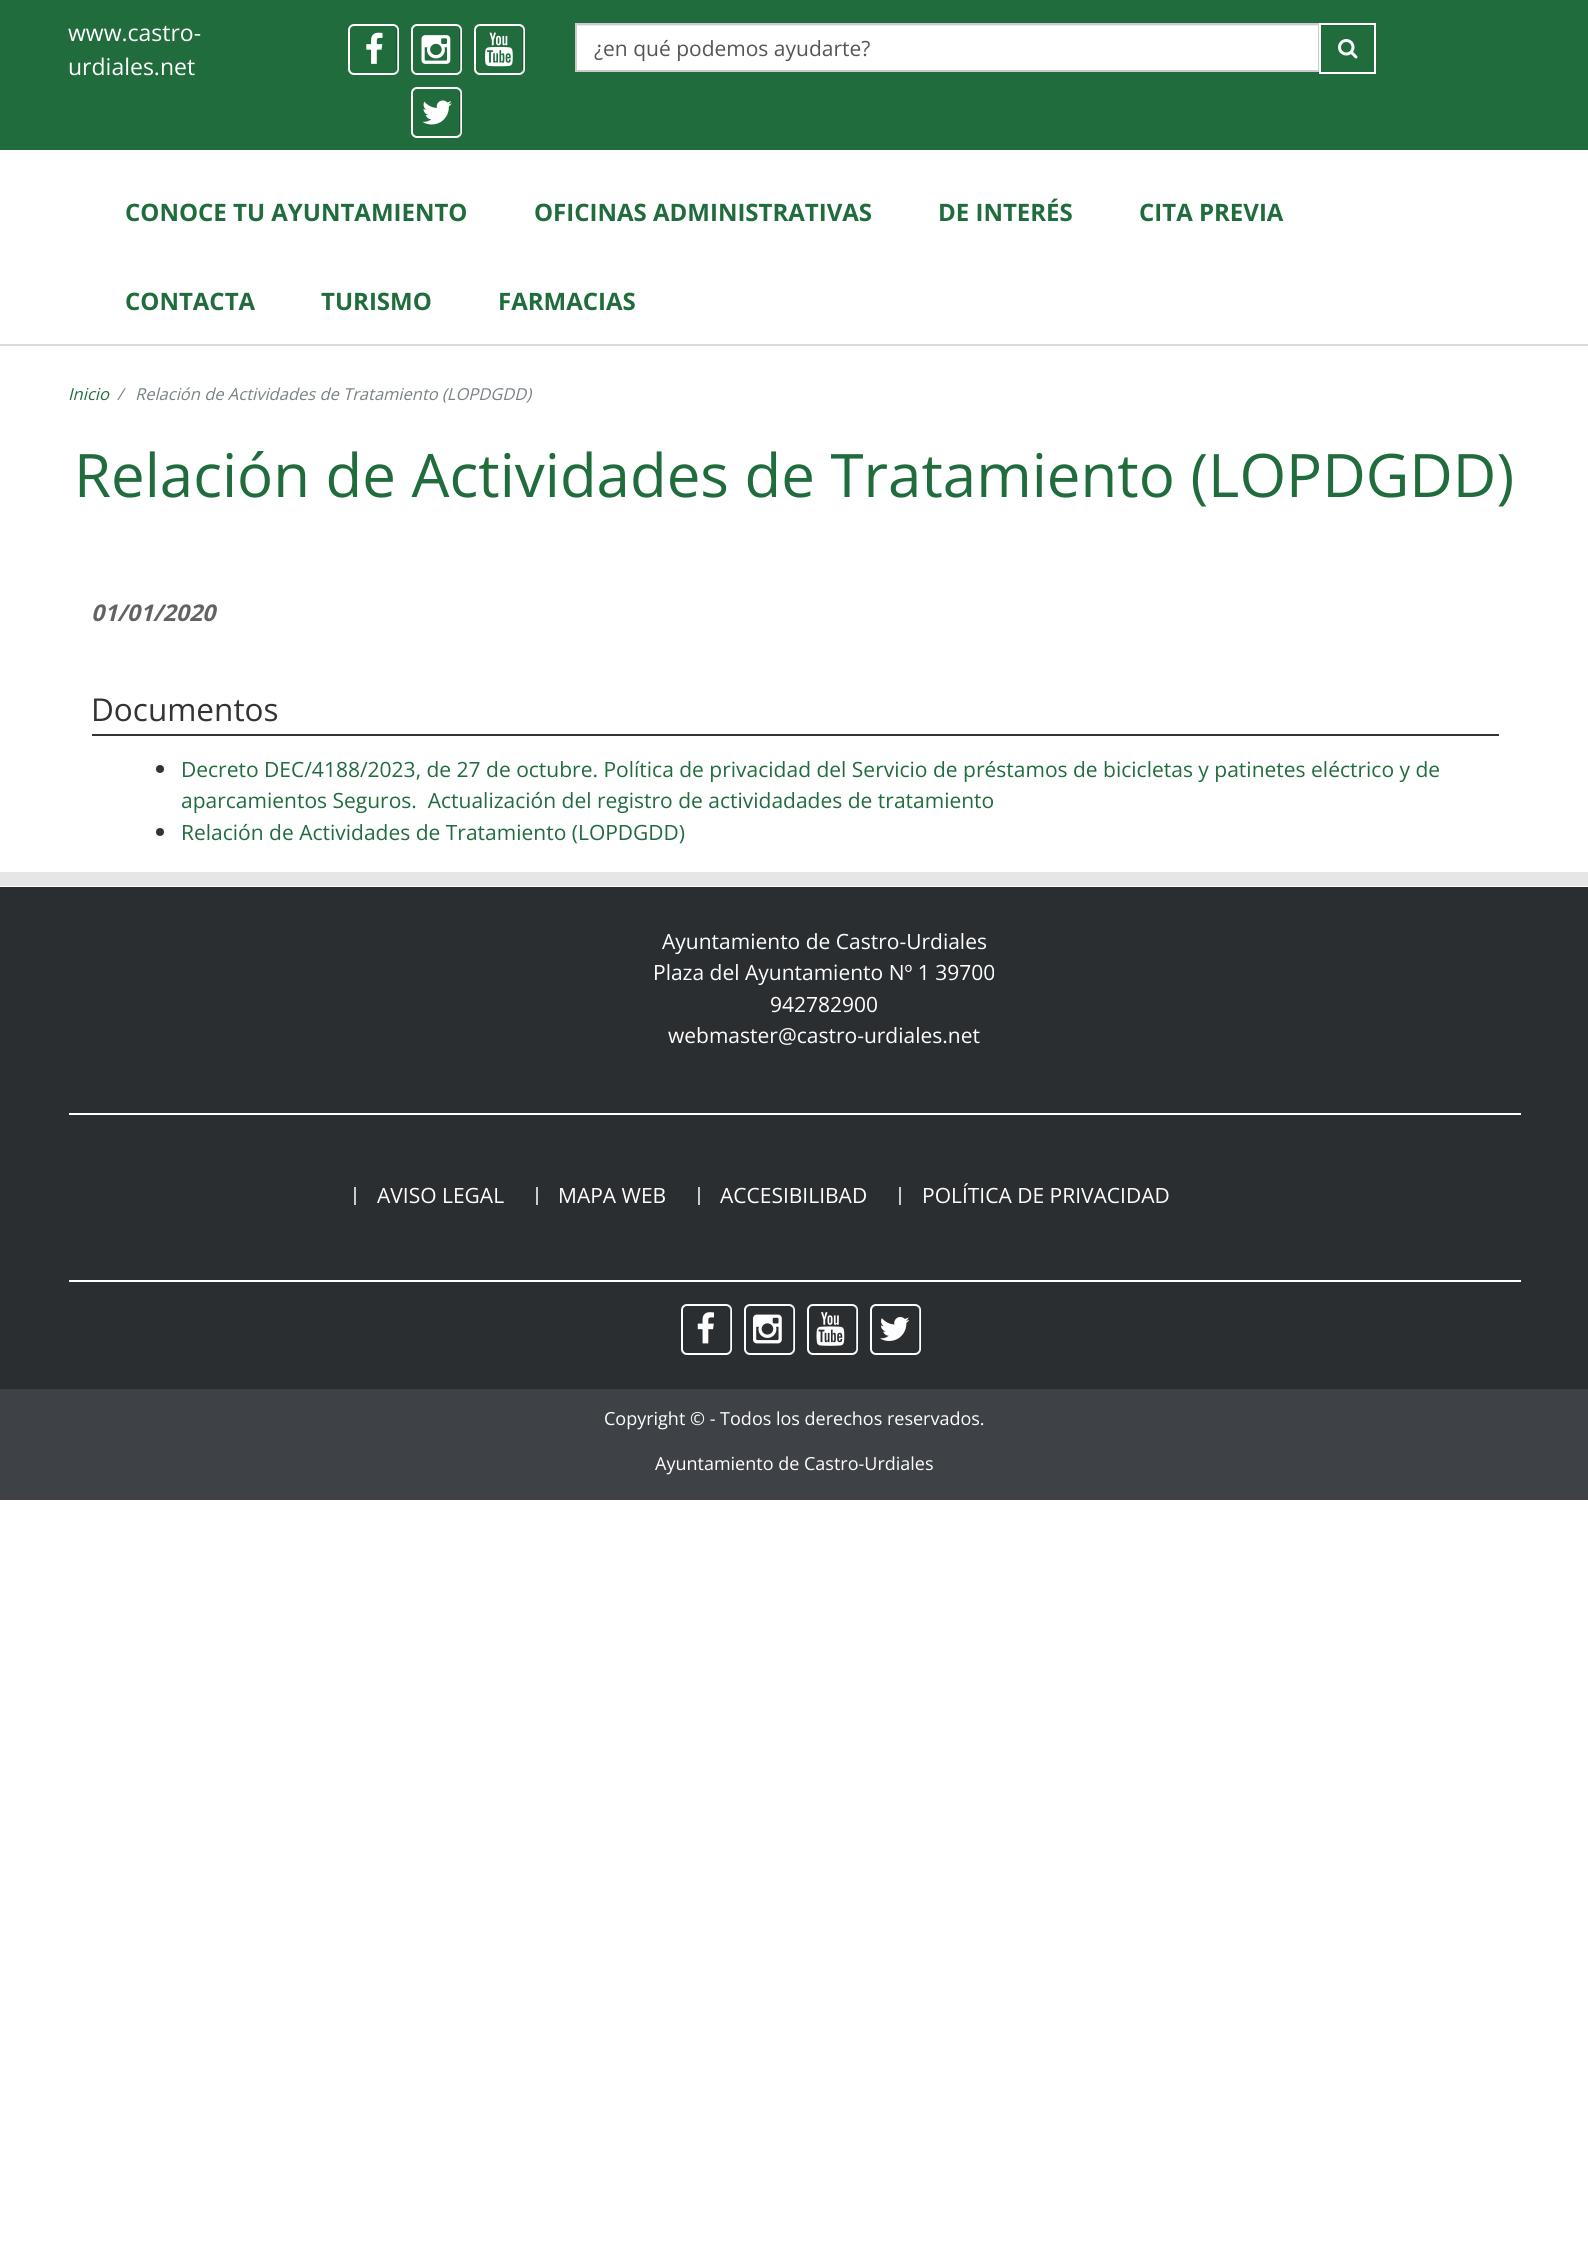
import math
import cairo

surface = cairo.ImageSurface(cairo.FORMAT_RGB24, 1588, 2243)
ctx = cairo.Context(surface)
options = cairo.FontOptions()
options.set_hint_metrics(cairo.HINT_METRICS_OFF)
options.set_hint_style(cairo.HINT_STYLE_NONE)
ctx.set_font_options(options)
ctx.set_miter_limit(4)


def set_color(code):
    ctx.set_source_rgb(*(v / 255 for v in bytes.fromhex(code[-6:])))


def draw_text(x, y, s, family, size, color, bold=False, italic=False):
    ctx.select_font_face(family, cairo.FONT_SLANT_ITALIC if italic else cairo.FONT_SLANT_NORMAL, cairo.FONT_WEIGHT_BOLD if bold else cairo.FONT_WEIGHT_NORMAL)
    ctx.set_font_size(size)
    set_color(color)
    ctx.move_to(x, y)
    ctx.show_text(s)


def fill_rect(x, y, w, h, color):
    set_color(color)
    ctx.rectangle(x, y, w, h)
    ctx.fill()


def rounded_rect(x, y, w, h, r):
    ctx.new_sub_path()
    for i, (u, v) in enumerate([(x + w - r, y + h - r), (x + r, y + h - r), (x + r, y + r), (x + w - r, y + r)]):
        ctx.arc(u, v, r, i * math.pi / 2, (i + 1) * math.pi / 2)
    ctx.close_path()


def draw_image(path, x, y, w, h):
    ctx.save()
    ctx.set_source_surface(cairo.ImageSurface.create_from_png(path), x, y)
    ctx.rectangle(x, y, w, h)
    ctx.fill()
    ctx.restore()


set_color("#ffffff")
ctx.paint()
fill_rect(0, 0, 1588, 150, "#206c3d")
draw_text(68, 41, "www.castro-", "Open Sans", 23, "#ffffff")
draw_text(68, 75, "urdiales.net", "Open Sans", 23, "#ffffff")
rounded_rect(349, 25, 49, 49, 5)
ctx.stroke()
ctx.save()
rounded_rect(350, 26, 48, 48, 5)
ctx.clip()
ctx.set_source_rgba(0, 0, 0, 0.2)
ctx.rectangle(396, 26, 2, 48)
ctx.fill()
ctx.restore()
draw_image("assets/img1.png", 366, 32, 17, 32)
rounded_rect(412, 25, 49, 49, 5)
ctx.stroke()
ctx.save()
rounded_rect(413, 26, 48, 48, 5)
ctx.clip()
ctx.set_source_rgba(0, 0, 0, 0.2)
ctx.rectangle(459, 26, 2, 48)
ctx.fill()
ctx.restore()
draw_image("assets/img2.png", 421, 35, 30, 29)
rounded_rect(475, 25, 49, 49, 5)
ctx.stroke()
ctx.save()
rounded_rect(476, 26, 48, 48, 5)
ctx.clip()
ctx.set_source_rgba(0, 0, 0, 0.2)
ctx.rectangle(522, 26, 2, 48)
ctx.fill()
ctx.restore()
draw_image("assets/img3.png", 485, 32, 28, 35)
rounded_rect(412, 88, 49, 49, 5)
ctx.stroke()
ctx.save()
rounded_rect(413, 89, 48, 48, 5)
ctx.clip()
ctx.set_source_rgba(0, 0, 0, 0.2)
ctx.rectangle(459, 89, 2, 48)
ctx.fill()
ctx.restore()
draw_image("assets/img4.png", 422, 100, 30, 25)
fill_rect(577, 26, 741, 44, "#ffffff")
fill_rect(576, 25, 743, 1, "#ececec")
ctx.rectangle(576, 24, 743, 47)
set_color("#cccccc")
ctx.stroke()
draw_text(594, 56, "¿en qué podemos ayudarte?", "Open Sans", 21, "#555555")
fill_rect(1320, 25, 54, 1, "#1e6438")
ctx.rectangle(1320, 24, 55, 49)
set_color("#ffffff")
ctx.stroke()
draw_image("assets/img5.png", 1338, 39, 20, 20)
fill_rect(0, 344, 1588, 2, "#dcdbd7")
draw_text(125, 221, "CONOCE TU AYUNTAMIENTO", "Open Sans", 24, "#206c3d", bold=True)
draw_text(534, 221, "OFICINAS ADMINISTRATIVAS", "Open Sans", 24, "#206c3d", bold=True)
draw_text(938, 221, "DE INTERÉS", "Open Sans", 24, "#206c3d", bold=True)
draw_text(1139, 221, "CITA PREVIA", "Open Sans", 24, "#206c3d", bold=True)
draw_text(125, 310, "CONTACTA", "Open Sans", 24, "#206c3d", bold=True)
draw_text(321, 310, "TURISMO", "Open Sans", 24, "#206c3d", bold=True)
draw_text(498, 310, "FARMACIAS", "Open Sans", 24, "#206c3d", bold=True)
draw_text(68, 400, "Inicio", "Open Sans", 16.5, "#206c3d", italic=True)
draw_text(117, 400, "/", "Open Sans", 16.5, "#798184", italic=True)
draw_text(135, 400, "Relación de Actividades de Tratamiento (LOPDGDD)", "Open Sans", 16.5, "#798184", italic=True)
draw_text(74, 497, "Relación de Actividades de Tratamiento (LOPDGDD)", "Open Sans", 60, "#206c3d")
draw_text(91, 621, "01/01/2020", "Open Sans", 23, "#636363", bold=True, italic=True)
fill_rect(92, 734, 1407, 2, "#333333")
draw_text(91, 721, "Documentos", "Open Sans", 31.5, "#333333")
ctx.new_path()
ctx.arc(160, 769, 4, 0, 2 * math.pi)
ctx.fill()
draw_text(181, 777, "Decreto DEC/4188/2023, de 27 de octubre. Política de privacidad del Servicio de préstamos de bicicletas y patinetes eléctrico y de", "Open Sans", 21, "#206c3d")
draw_text(181, 808, "aparcamientos Seguros.  Actualización del registro de actividadades de tratamiento", "Open Sans", 21, "#206c3d")
set_color("#333333")
ctx.new_path()
ctx.arc(160, 832, 4, 0, 2 * math.pi)
ctx.fill()
draw_text(181, 840, "Relación de Actividades de Tratamiento (LOPDGDD)", "Open Sans", 21, "#206c3d")
set_color("#e6e6e6")
ctx.new_path()
ctx.move_to(0, 872)
ctx.line_to(0, 886)
ctx.line_to(1588, 886)
ctx.line_to(1588, 1485)
ctx.line_to(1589, 1485)
ctx.line_to(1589, 872)
ctx.close_path()
ctx.fill()
fill_rect(0, 887, 1588, 502, "#2b2e31")
draw_text(662, 949, "Ayuntamiento de Castro-Urdiales", "Open Sans", 21, "#ffffff")
draw_text(653, 980, "Plaza del Ayuntamiento Nº 1 39700", "Open Sans", 21, "#ffffff")
draw_text(770, 1012, "942782900", "Open Sans", 21, "#ffffff")
draw_text(668, 1043, "webmaster@castro-urdiales.net", "Open Sans", 21, "#ffffff")
fill_rect(69, 1113, 1452, 2, "#ffffff")
fill_rect(69, 1280, 1452, 2, "#ffffff")
fill_rect(354, 1187, 2, 18, "#cacbcc")
draw_text(377, 1203, "AVISO LEGAL", "Open Sans", 21, "#ffffff")
fill_rect(536, 1187, 2, 18, "#cacbcc")
draw_text(558, 1203, "MAPA WEB", "Open Sans", 21, "#ffffff")
fill_rect(698, 1187, 2, 18, "#cacbcc")
draw_text(720, 1203, "ACCESIBILIBAD", "Open Sans", 21, "#ffffff")
fill_rect(899, 1187, 2, 18, "#cacbcc")
draw_text(922, 1203, "POLÍTICA DE PRIVACIDAD", "Open Sans", 21, "#ffffff")
rounded_rect(682, 1305, 49, 49, 5)
ctx.stroke()
ctx.save()
rounded_rect(683, 1305, 48, 48, 5)
ctx.clip()
ctx.set_source_rgba(0, 0, 0, 0.2)
ctx.rectangle(729, 1305, 2, 48)
ctx.fill()
ctx.restore()
draw_image("assets/img6.png", 697, 1312, 17, 32)
rounded_rect(745, 1305, 49, 49, 5)
ctx.stroke()
ctx.save()
rounded_rect(746, 1305, 48, 48, 5)
ctx.clip()
ctx.set_source_rgba(0, 0, 0, 0.2)
ctx.rectangle(792, 1305, 2, 48)
ctx.fill()
ctx.restore()
draw_image("assets/img7.png", 753, 1314, 29, 30)
rounded_rect(808, 1305, 49, 49, 5)
ctx.stroke()
ctx.save()
rounded_rect(809, 1305, 48, 48, 5)
ctx.clip()
ctx.set_source_rgba(0, 0, 0, 0.2)
ctx.rectangle(855, 1305, 2, 48)
ctx.fill()
ctx.restore()
draw_image("assets/img8.png", 816, 1312, 29, 34)
rounded_rect(871, 1305, 49, 49, 5)
ctx.stroke()
ctx.save()
rounded_rect(872, 1305, 48, 48, 5)
ctx.clip()
ctx.set_source_rgba(0, 0, 0, 0.2)
ctx.rectangle(918, 1305, 2, 48)
ctx.fill()
ctx.restore()
draw_image("assets/img9.png", 880, 1317, 30, 24)
fill_rect(0, 1389, 1588, 111, "#3e4246")
draw_text(604, 1425, "Copyright © - Todos los derechos reservados.", "Open Sans", 18, "#ffffff")
draw_text(655, 1470, "Ayuntamiento de Castro-Urdiales", "Open Sans", 18, "#ffffff")
surface.write_to_png("output.png")
